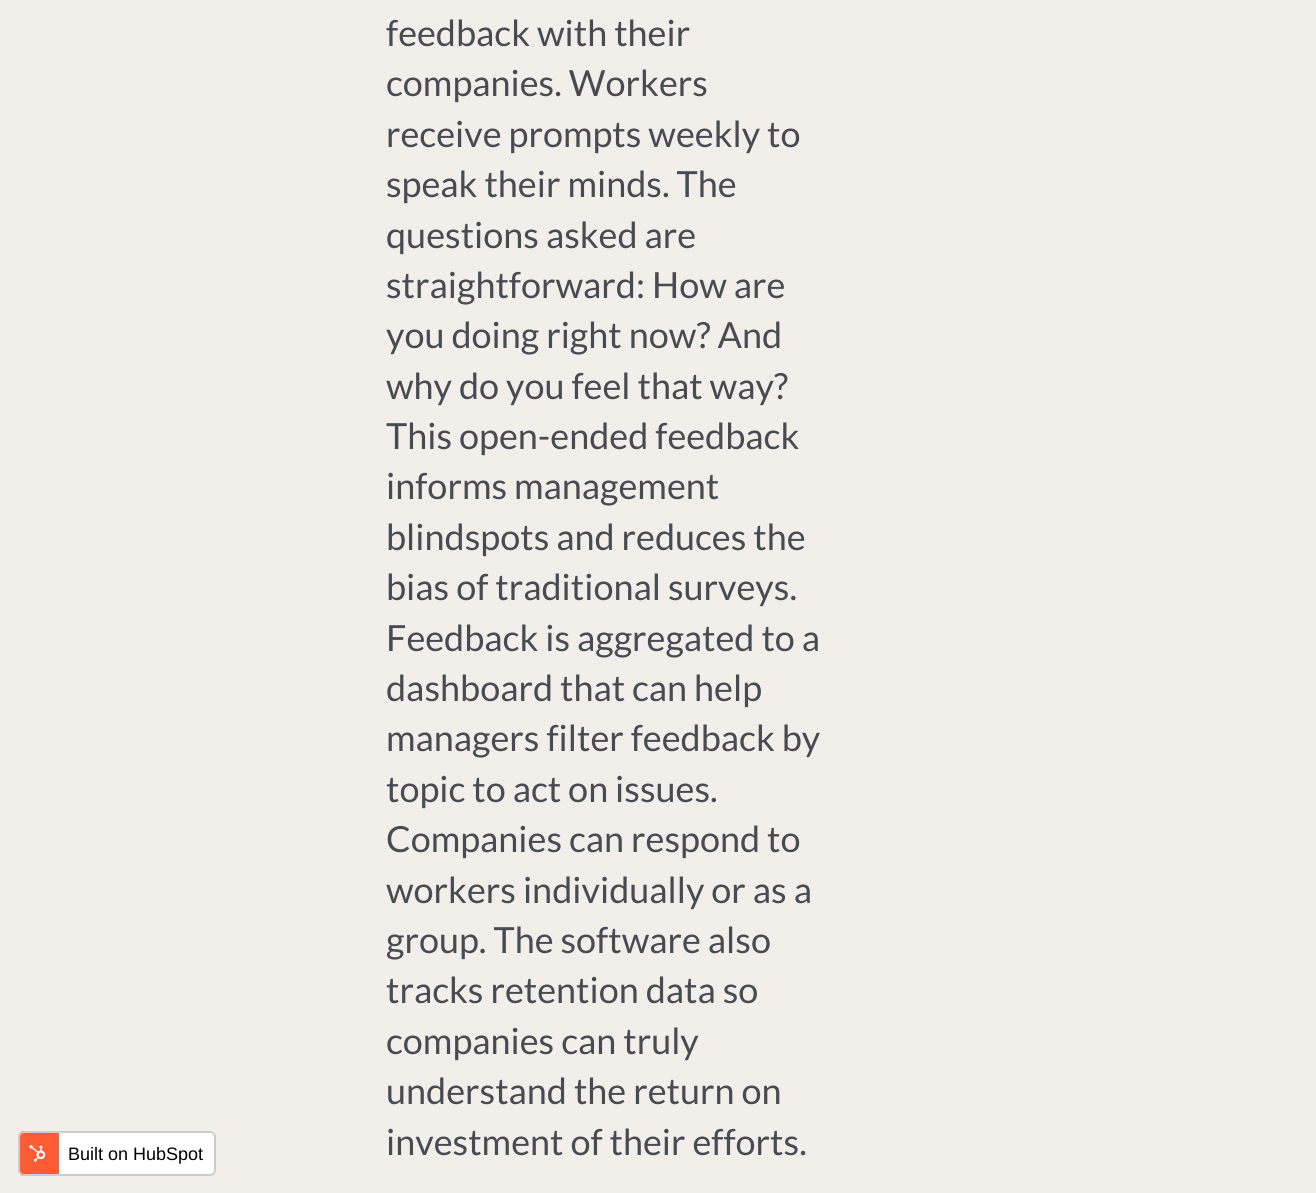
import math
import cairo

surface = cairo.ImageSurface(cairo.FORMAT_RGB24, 1316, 1193)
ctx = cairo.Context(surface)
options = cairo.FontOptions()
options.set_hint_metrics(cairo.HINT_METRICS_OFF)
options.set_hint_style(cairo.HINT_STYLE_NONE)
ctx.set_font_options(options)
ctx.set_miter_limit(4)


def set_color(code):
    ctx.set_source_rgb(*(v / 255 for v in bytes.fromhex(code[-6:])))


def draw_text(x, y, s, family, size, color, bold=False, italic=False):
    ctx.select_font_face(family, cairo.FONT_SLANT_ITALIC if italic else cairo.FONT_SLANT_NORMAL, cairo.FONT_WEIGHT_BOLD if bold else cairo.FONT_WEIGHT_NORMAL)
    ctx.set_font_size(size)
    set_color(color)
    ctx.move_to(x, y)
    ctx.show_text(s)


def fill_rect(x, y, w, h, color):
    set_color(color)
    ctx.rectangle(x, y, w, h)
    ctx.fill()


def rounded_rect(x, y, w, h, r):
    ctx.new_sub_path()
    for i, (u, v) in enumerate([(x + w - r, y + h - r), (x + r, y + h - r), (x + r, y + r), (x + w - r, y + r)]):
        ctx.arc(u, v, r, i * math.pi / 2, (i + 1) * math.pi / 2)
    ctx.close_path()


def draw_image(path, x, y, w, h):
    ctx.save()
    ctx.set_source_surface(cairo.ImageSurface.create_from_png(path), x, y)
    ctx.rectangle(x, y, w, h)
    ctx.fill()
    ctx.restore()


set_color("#f2efea")
ctx.paint()
ctx.save()
rounded_rect(18, 1131, 198, 45, 6)
ctx.clip()
fill_rect(20, 1131, 39, 45, "#ff5c35")
fill_rect(59, 1131, 156, 45, "#ffffff")
ctx.restore()
rounded_rect(19, 1132, 196, 43, 5)
set_color("#cccccc")
ctx.stroke()
draw_image("assets/img1.png", 29, 1145, 17, 17)
draw_text(68, 1160, "Built on HubSpot", "Liberation Sans", 18, "#000000")
draw_text(386, 46, "feedback with their", "Lato", 36, "#494a52")
draw_text(386, 96, "companies. Workers", "Lato", 36, "#494a52")
draw_text(386, 147, "receive prompts weekly to", "Lato", 36, "#494a52")
draw_text(386, 197, "speak their minds. The", "Lato", 36, "#494a52")
draw_text(386, 248, "questions asked are", "Lato", 36, "#494a52")
draw_text(386, 298, "straightforward: How are", "Lato", 36, "#494a52")
draw_text(386, 348, "you doing right now? And", "Lato", 36, "#494a52")
draw_text(386, 399, "why do you feel that way?", "Lato", 36, "#494a52")
draw_text(386, 449, "This open-ended feedback", "Lato", 36, "#494a52")
draw_text(386, 499, "informs management", "Lato", 36, "#494a52")
draw_text(386, 550, "blindspots and reduces the", "Lato", 36, "#494a52")
draw_text(386, 600, "bias of traditional surveys.", "Lato", 36, "#494a52")
draw_text(386, 651, "Feedback is aggregated to a", "Lato", 36, "#494a52")
draw_text(386, 701, "dashboard that can help", "Lato", 36, "#494a52")
draw_text(386, 751, "managers filter feedback by", "Lato", 36, "#494a52")
draw_text(386, 802, "topic to act on issues.", "Lato", 36, "#494a52")
draw_text(386, 852, "Companies can respond to", "Lato", 36, "#494a52")
draw_text(386, 903, "workers individually or as a", "Lato", 36, "#494a52")
draw_text(386, 953, "group. The software also", "Lato", 36, "#494a52")
draw_text(386, 1003, "tracks retention data so", "Lato", 36, "#494a52")
draw_text(386, 1054, "companies can truly", "Lato", 36, "#494a52")
draw_text(386, 1104, "understand the return on", "Lato", 36, "#494a52")
draw_text(386, 1155, "investment of their efforts.", "Lato", 36, "#494a52")
surface.write_to_png("output.png")
